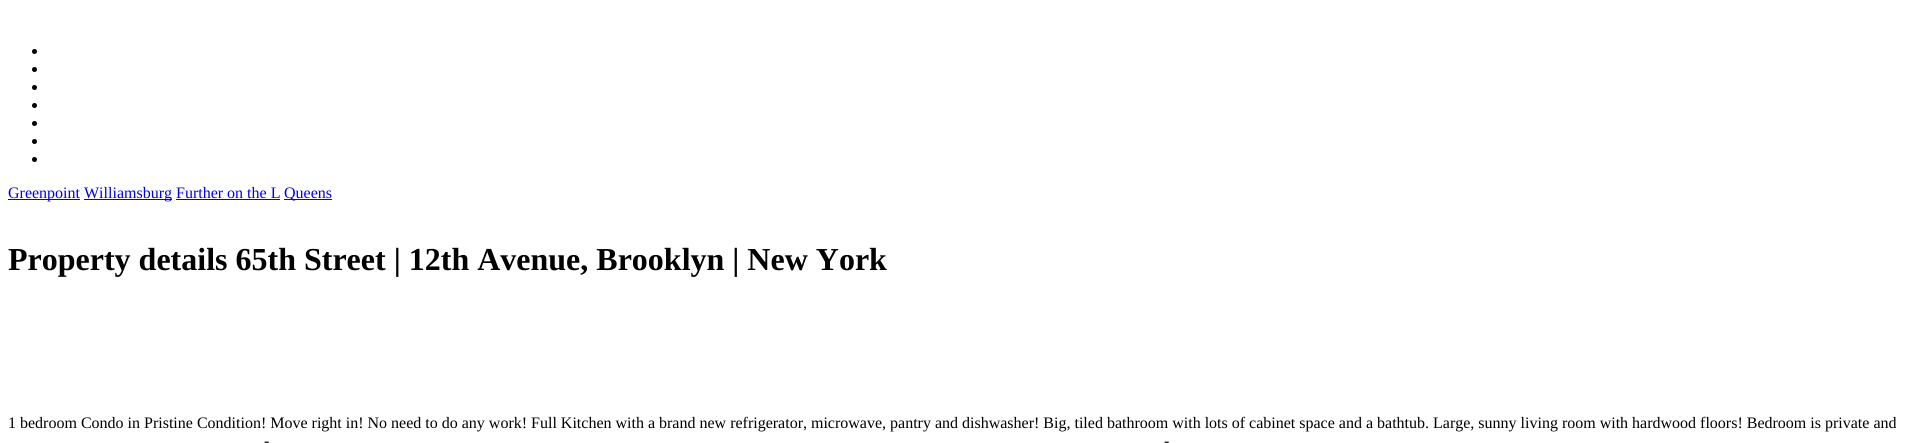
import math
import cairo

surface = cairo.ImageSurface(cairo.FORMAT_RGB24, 1911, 443)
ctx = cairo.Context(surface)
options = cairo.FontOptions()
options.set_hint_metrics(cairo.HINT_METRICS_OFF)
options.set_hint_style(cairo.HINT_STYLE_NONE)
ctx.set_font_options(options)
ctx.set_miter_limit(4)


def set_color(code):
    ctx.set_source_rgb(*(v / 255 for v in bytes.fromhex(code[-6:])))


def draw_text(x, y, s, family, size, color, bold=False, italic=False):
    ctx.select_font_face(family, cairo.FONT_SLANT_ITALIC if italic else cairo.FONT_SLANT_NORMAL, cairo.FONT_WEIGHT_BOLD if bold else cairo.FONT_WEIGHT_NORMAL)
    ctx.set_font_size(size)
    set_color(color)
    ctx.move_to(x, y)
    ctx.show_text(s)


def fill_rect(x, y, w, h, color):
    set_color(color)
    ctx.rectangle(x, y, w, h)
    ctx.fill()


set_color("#ffffff")
ctx.paint()
set_color("#000000")
ctx.arc(34.5, 51.5, 2.5, 0, 2 * math.pi)
ctx.fill()
ctx.arc(34.5, 69.5, 2.5, 0, 2 * math.pi)
ctx.fill()
ctx.arc(34.5, 87.5, 2.5, 0, 2 * math.pi)
ctx.fill()
ctx.arc(34.5, 105.5, 2.5, 0, 2 * math.pi)
ctx.fill()
ctx.arc(34.5, 123.5, 2.5, 0, 2 * math.pi)
ctx.fill()
ctx.arc(34.5, 141.5, 2.5, 0, 2 * math.pi)
ctx.fill()
ctx.arc(34.5, 159.5, 2.5, 0, 2 * math.pi)
ctx.fill()
fill_rect(8, 199, 72, 1, "#0000ee")
draw_text(8, 198, "Greenpoint", "Liberation Serif", 16, "#0000ee")
fill_rect(84, 199, 88, 1, "#0000ee")
draw_text(84, 198, "Williamsburg Further on the L", "Liberation Serif", 16, "#0000ee")
fill_rect(284, 199, 48, 1, "#0000ee")
draw_text(284, 198, "Queens", "Liberation Serif", 16, "#0000ee")
fill_rect(176, 199, 104, 1, "#0000ee")
draw_text(8, 270, "Property details 65th Street | 12th Avenue, Brooklyn | New York", "Liberation Serif", 32, "#000000", bold=True)
draw_text(8, 428, "1 bedroom Condo in Pristine Condition! Move right in! No need to do any work! Full Kitchen with a brand new refrigerator, microwave, pantry and dishwasher! Big, tiled bathroom with lots of cabinet space and a bathtub. Large, sunny living room with hardwood floors! Bedroom is private and", "Liberation Serif", 16, "#000000")
draw_text(264, 446, "-", "Liberation Serif", 16, "#000000")
draw_text(1164, 446, "-", "Liberation Serif", 16, "#000000")
surface.write_to_png("output.png")
